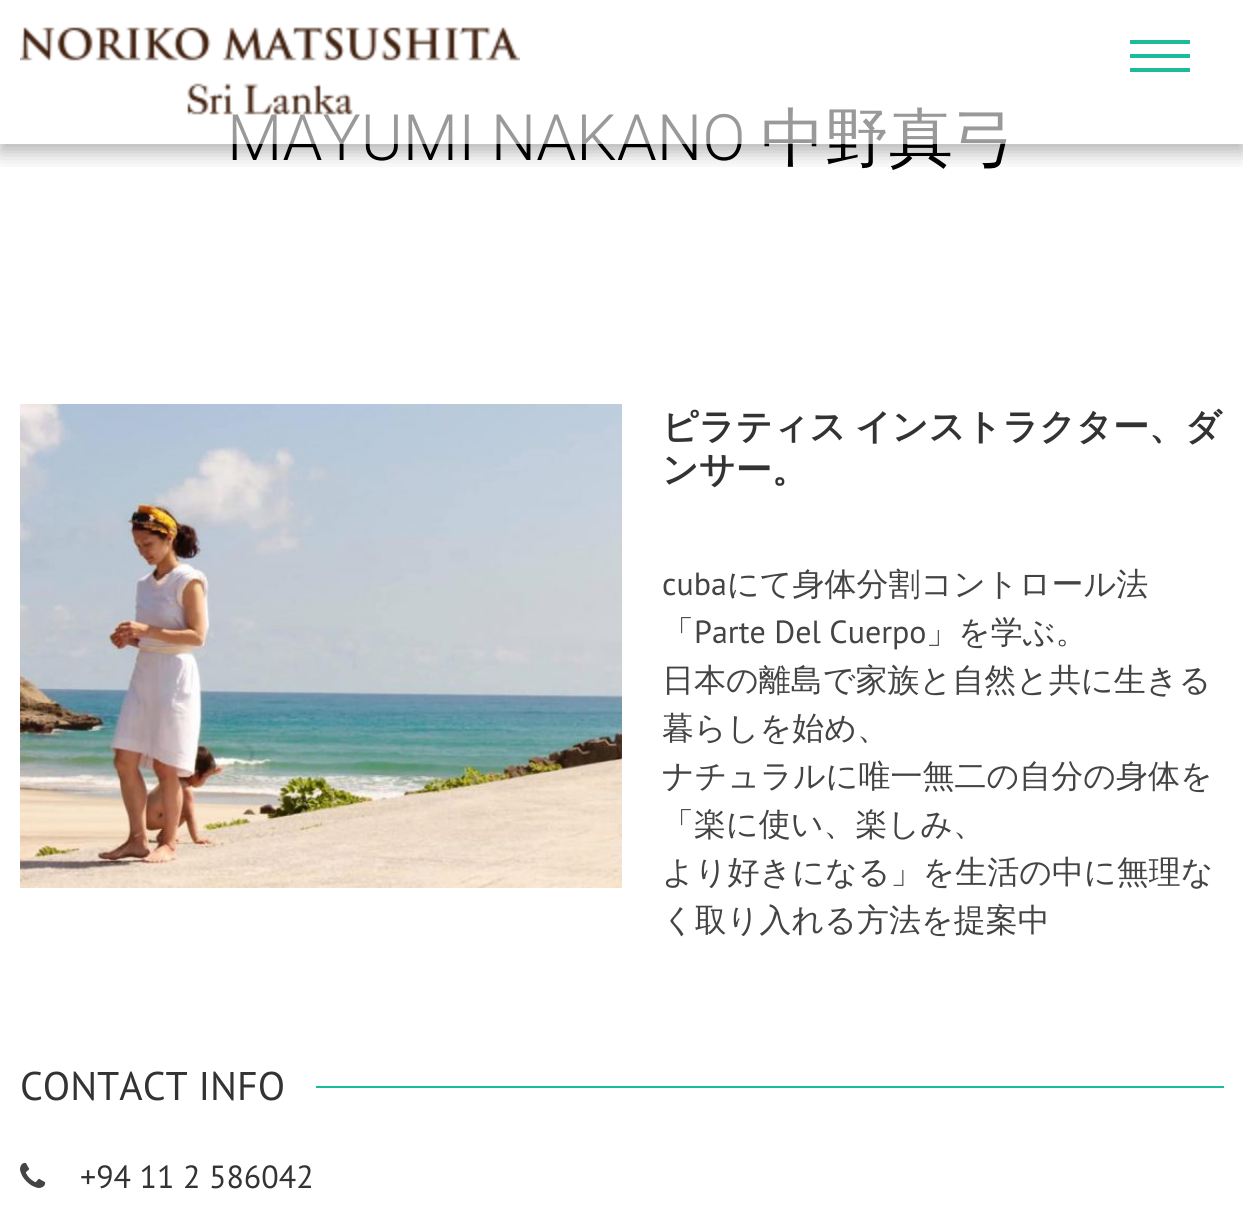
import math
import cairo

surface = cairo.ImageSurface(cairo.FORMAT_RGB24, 1243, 1210)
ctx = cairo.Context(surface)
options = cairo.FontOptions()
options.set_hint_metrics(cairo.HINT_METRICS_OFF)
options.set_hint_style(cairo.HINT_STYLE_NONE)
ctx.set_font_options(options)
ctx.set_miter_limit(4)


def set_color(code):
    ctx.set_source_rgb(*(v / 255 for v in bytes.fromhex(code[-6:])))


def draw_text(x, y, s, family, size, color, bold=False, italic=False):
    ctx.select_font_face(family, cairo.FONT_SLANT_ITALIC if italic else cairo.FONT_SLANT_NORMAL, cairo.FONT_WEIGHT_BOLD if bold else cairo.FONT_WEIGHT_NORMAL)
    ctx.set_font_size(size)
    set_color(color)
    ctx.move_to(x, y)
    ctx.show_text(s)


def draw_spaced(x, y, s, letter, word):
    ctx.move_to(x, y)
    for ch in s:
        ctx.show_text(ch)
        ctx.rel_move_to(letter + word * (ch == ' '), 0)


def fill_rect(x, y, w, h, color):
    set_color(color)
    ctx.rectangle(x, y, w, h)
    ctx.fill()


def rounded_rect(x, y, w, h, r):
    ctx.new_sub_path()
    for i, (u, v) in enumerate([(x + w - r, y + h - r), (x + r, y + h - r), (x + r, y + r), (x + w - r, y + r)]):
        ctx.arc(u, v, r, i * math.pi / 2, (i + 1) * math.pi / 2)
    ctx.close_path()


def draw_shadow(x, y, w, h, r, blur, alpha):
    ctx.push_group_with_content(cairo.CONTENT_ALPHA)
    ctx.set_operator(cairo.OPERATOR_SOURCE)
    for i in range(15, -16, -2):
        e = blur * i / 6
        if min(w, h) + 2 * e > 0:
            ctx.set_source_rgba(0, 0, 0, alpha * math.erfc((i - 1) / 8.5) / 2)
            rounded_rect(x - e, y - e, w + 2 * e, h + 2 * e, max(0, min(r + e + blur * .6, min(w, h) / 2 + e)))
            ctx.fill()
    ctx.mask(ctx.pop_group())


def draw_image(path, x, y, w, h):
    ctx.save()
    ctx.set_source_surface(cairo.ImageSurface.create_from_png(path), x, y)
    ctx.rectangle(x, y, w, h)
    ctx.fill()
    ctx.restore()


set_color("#ffffff")
ctx.paint()
ctx.save()
ctx.rectangle(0, 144, 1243, 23)
ctx.clip()
set_color("#000000")
draw_shadow(0, 8, 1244, 144, 0, 10, 0.3)
ctx.restore()
draw_text(227, 160, "MAYUMI NAKANO", "Roboto Light", 64, "#000000")
draw_text(761, 160, "中野真弓", "WenQuanYi Zen Hei Medium", 64, "#000000")
ctx.set_source_rgba(1, 1, 1, 0.6)
ctx.rectangle(232, 107, 775, 37)
ctx.fill()
draw_image("assets/img1.png", 20, 27, 500, 88)
fill_rect(1130, 40, 60, 4, "#1abc9c")
fill_rect(1130, 54, 60, 4, "#1abc9c")
fill_rect(1130, 68, 60, 4, "#1abc9c")
draw_image("assets/img2.png", 20, 404, 602, 484)
ctx.select_font_face("WenQuanYi Zen Hei", cairo.FONT_SLANT_NORMAL, cairo.FONT_WEIGHT_BOLD)
ctx.set_font_size(36)
set_color("#333333")
draw_spaced(662, 439, "ピラティス インストラクター、ダ", 0, -2)
draw_text(662, 482, "ンサー。", "WenQuanYi Zen Hei", 36, "#333333", bold=True)
draw_text(662, 595, "cuba", "PT Sans", 32, "#444444")
draw_text(727, 595, "にて身体分割コントロール法", "WenQuanYi Zen Hei Medium", 32, "#444444")
draw_text(662, 643, "「", "WenQuanYi Zen Hei Medium", 32, "#444444")
draw_text(694, 643, "Parte Del Cuerpo", "PT Sans", 32, "#444444")
draw_text(926, 643, "」を学ぶ。", "WenQuanYi Zen Hei Medium", 32, "#444444")
draw_text(662, 691, "日本の離島で家族と自然と共に生きる", "WenQuanYi Zen Hei Medium", 32, "#444444")
draw_text(662, 739, "暮らしを始め、", "WenQuanYi Zen Hei Medium", 32, "#444444")
draw_text(662, 787, "ナチュラルに唯一無二の自分の身体を", "WenQuanYi Zen Hei Medium", 32, "#444444")
draw_text(662, 835, "「楽に使い、楽しみ、", "WenQuanYi Zen Hei Medium", 32, "#444444")
draw_text(662, 883, "より好きになる」を生活の中に無理な", "WenQuanYi Zen Hei Medium", 32, "#444444")
draw_text(662, 931, "く取り入れる方法を提案中", "WenQuanYi Zen Hei Medium", 32, "#444444")
draw_text(20, 1100, "CONTACT INFO", "PT Sans", 40, "#333333")
fill_rect(316, 1086, 908, 2, "#1abc9c")
draw_image("assets/img3.png", 20, 1162, 26, 26)
draw_text(80, 1188, "+94 11 2 586042", "PT Sans", 32, "#333333")
surface.write_to_png("output.png")
